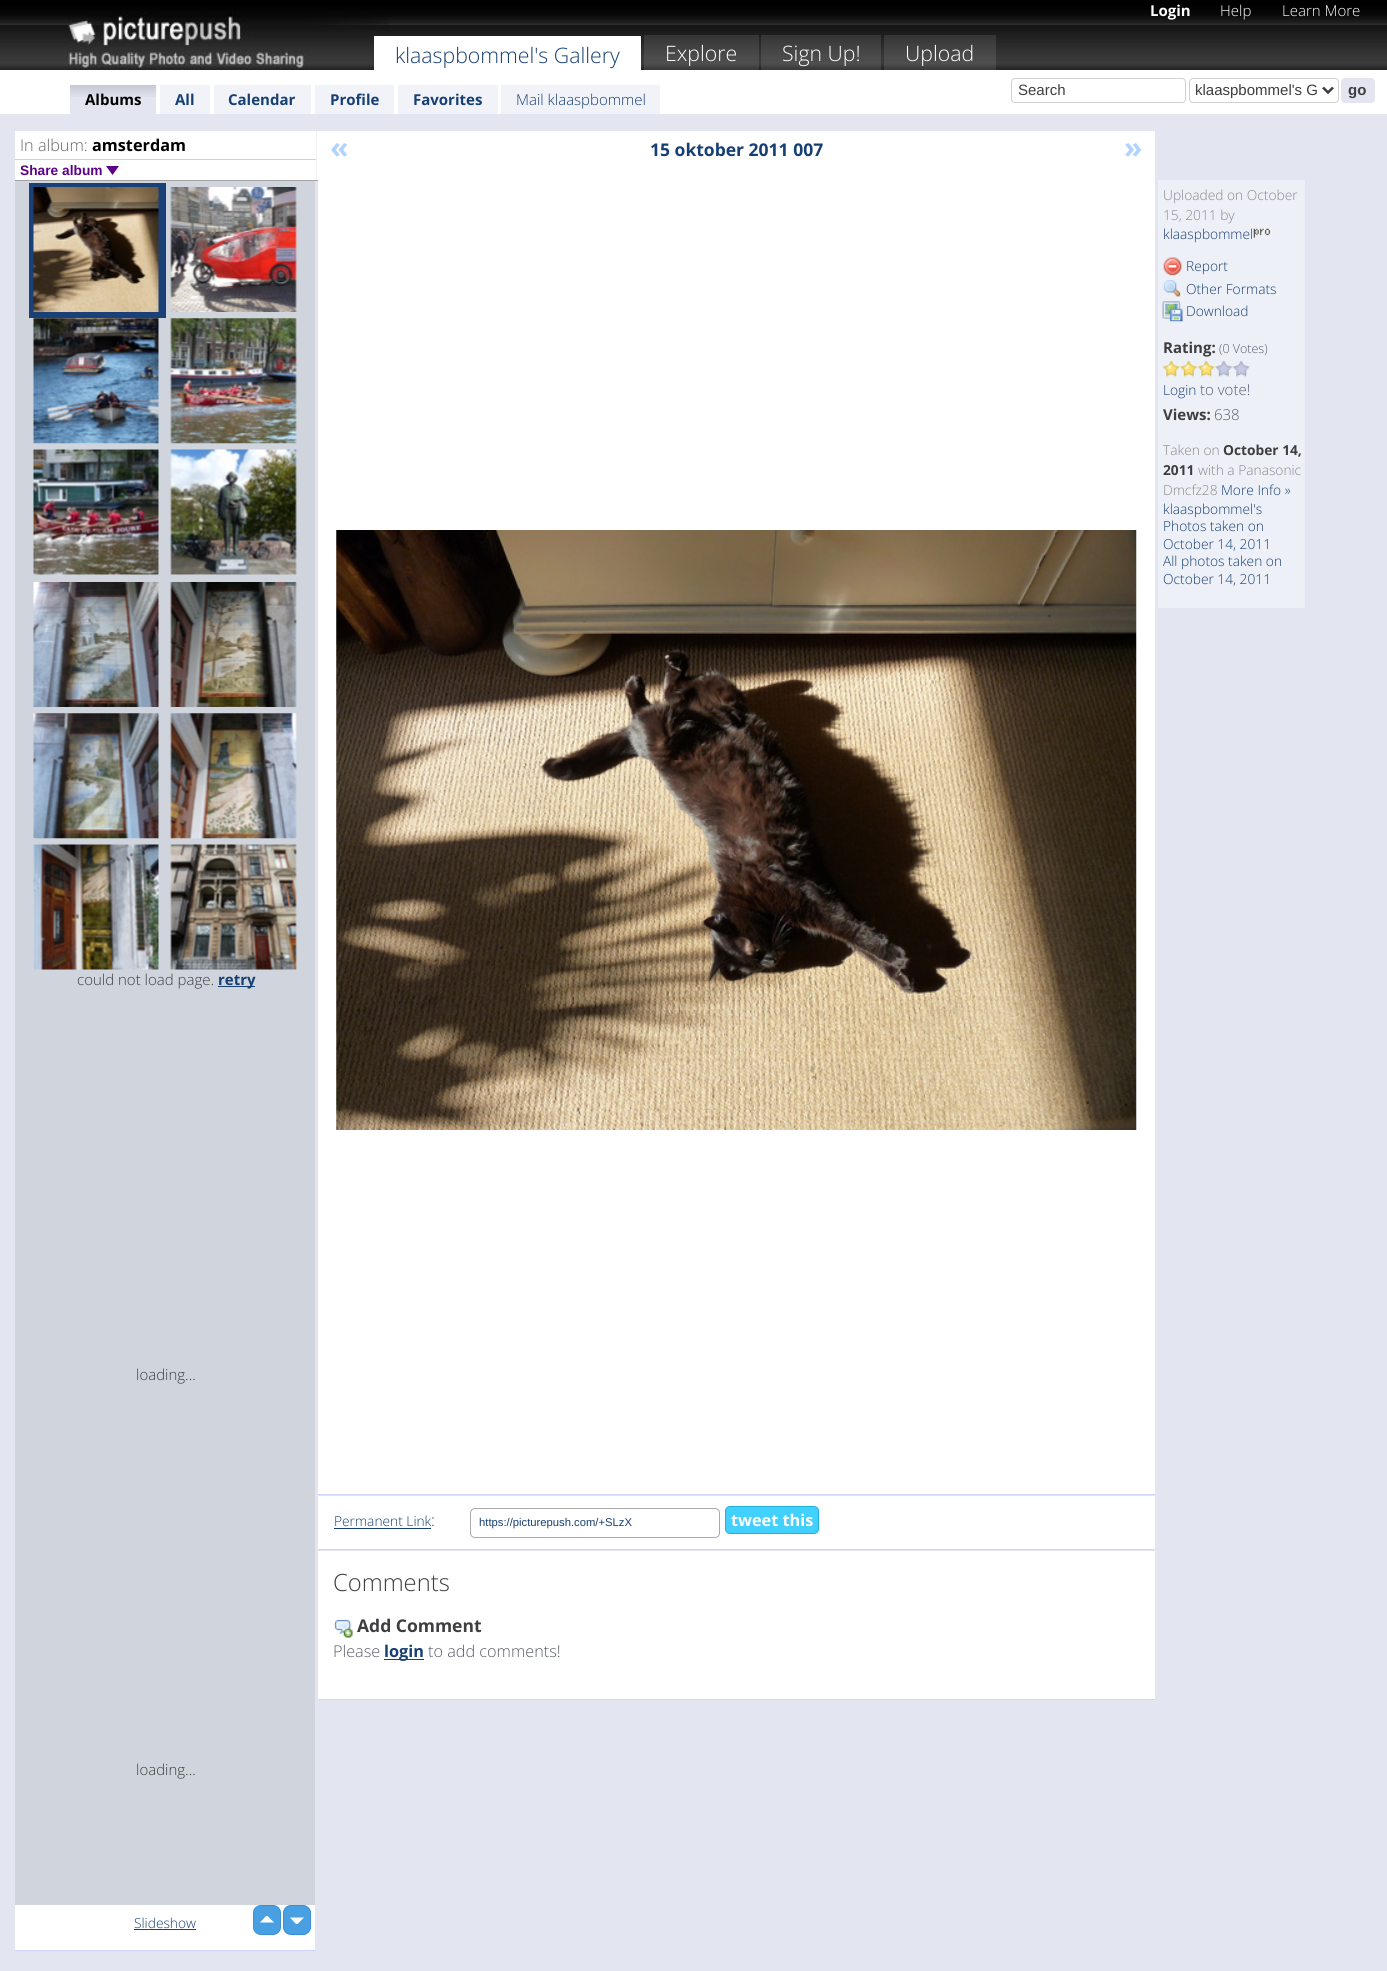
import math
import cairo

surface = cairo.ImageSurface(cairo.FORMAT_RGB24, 1387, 1971)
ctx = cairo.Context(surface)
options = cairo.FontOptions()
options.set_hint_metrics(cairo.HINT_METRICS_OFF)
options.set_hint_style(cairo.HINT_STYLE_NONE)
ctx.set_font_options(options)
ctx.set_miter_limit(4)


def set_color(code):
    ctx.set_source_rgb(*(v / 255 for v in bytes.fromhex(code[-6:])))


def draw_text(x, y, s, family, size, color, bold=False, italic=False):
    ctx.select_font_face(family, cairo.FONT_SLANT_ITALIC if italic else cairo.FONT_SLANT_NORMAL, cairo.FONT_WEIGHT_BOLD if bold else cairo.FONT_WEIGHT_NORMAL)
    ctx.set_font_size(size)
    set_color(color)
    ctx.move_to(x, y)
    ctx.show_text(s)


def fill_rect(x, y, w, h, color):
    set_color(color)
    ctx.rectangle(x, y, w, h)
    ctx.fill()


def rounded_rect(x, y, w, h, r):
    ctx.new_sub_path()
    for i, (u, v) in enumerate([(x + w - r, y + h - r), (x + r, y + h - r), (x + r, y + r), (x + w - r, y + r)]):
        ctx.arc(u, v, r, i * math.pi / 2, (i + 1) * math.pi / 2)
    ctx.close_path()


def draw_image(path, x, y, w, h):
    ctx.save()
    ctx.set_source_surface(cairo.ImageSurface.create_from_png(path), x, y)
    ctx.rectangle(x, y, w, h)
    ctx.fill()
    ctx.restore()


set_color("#e3e6f1")
ctx.paint()
draw_image("assets/img1.png", 0, 0, 1387, 70)
draw_image("assets/img2.png", 68, 12, 321, 58)
fill_rect(374, 36, 267, 34, "#ffffff")
draw_text(395, 63, "klaaspbommel's Gallery", "Open Sans Light", 21.25, "#163f73")
ctx.set_source_rgba(1, 1, 1, 0.1)
ctx.rectangle(644, 35, 115, 35)
ctx.fill()
draw_text(665, 61, "Explore", "Open Sans Light", 21.25, "#ffffff")
ctx.set_source_rgba(1, 1, 1, 0.1)
ctx.rectangle(761, 35, 120, 35)
ctx.fill()
draw_text(782, 61, "Sign Up!", "Open Sans Light", 21.25, "#ffffff")
ctx.set_source_rgba(1, 1, 1, 0.1)
ctx.rectangle(884, 35, 112, 35)
ctx.fill()
draw_text(905, 61, "Upload", "Open Sans Light", 21.25, "#ffffff")
draw_text(1150, 16, "Login", "Open Sans", 15, "#ffffff", bold=True)
draw_text(1220, 16, "Help", "Open Sans Light", 15, "#ffffff")
draw_text(1282, 16, "Learn More", "Open Sans Light", 15, "#ffffff")
fill_rect(0, 70, 1387, 44, "#ffffff")
rounded_rect(1011.5, 78.5, 174, 24, 3.5)
set_color("#d0d0d0")
ctx.set_line_width(1)
ctx.stroke()
draw_text(1018, 95, "Search", "Liberation Sans", 15, "#3e3e41")
rounded_rect(1189.5, 78.5, 149, 24, 3.5)
set_color("#d0d0d0")
ctx.stroke()
ctx.new_path()
ctx.move_to(1323, 87.5)
ctx.line_to(1328, 92.5)
ctx.line_to(1333, 87.5)
set_color("#3e3e3e")
ctx.set_line_width(2.5)
ctx.stroke()
draw_text(1195, 95, "klaaspbommel's G", "Liberation Sans", 15, "#3e3e41")
set_color("#e3e6f1")
rounded_rect(1341.5, 78.5, 33, 24, 3.5)
ctx.fill_preserve()
ctx.set_line_width(1)
ctx.stroke()
draw_text(1348, 95, "go", "Liberation Sans", 15, "#3e3e41", bold=True)
fill_rect(70, 85, 86, 29, "#e3e6f1")
draw_image("assets/img3.png", 70, 85, 87, 12)
draw_text(85, 105, "Albums", "Open Sans", 15, "#000000", bold=True)
fill_rect(160, 85, 50, 29, "#f1f3f9")
draw_text(175, 105, "All", "Open Sans", 15, "#163f73", bold=True)
fill_rect(214, 85, 97, 29, "#f1f3f9")
draw_text(228, 105, "Calendar", "Open Sans", 15, "#163f73", bold=True)
fill_rect(315, 85, 79, 29, "#f1f3f9")
draw_text(330, 105, "Profile", "Open Sans", 15, "#163f73", bold=True)
fill_rect(398, 85, 100, 29, "#f1f3f9")
draw_text(413, 105, "Favorites", "Open Sans", 15, "#163f73", bold=True)
fill_rect(501, 85, 159, 29, "#f1f3f9")
draw_text(516, 105, "Mail klaaspbommel", "Open Sans Light", 15, "#163f73")
fill_rect(15, 131, 303, 49, "#ffffff")
fill_rect(316, 131, 1, 50, "#f3f3f3")
fill_rect(15, 180, 303, 1, "#a4a4a4")
draw_text(20, 151, "In album:", "Open Sans Light", 16.25, "#666666")
draw_text(92, 151, "amsterdam", "Open Sans", 16.25, "#000000", bold=True)
fill_rect(15, 159, 301, 1, "#d0d0e0")
draw_text(20, 175, "Share album", "Liberation Sans", 13.75, "#5e0085", bold=True)
ctx.new_path()
ctx.move_to(106, 166)
ctx.line_to(119, 166)
ctx.line_to(112.5, 175)
ctx.close_path()
ctx.fill()
fill_rect(15, 181, 300, 1724, "#d0d5dd")
fill_rect(15, 1950, 300, 1, "#cfd4ff")
fill_rect(29, 183, 137, 135, "#194077")
draw_image("assets/img4.png", 33, 187, 126, 125)
draw_image("assets/img5.png", 170, 187, 127, 125)
draw_image("assets/img6.png", 33, 318, 126, 126)
draw_image("assets/img7.png", 170, 318, 127, 126)
draw_image("assets/img8.png", 33, 449, 126, 126)
draw_image("assets/img9.png", 170, 449, 127, 126)
draw_image("assets/img10.png", 33, 582, 126, 125)
draw_image("assets/img11.png", 170, 582, 127, 125)
draw_image("assets/img12.png", 33, 713, 126, 126)
draw_image("assets/img13.png", 170, 713, 127, 126)
draw_image("assets/img14.png", 33, 844, 126, 126)
draw_image("assets/img15.png", 170, 844, 127, 126)
draw_text(77, 985, "could not load page.", "Open Sans Light", 15, "#3e3e41")
fill_rect(218, 986, 37, 1, "#163f73")
draw_text(218, 985, "retry", "Open Sans", 15, "#163f73", bold=True)
draw_text(136, 1380, "loading...", "Open Sans Light", 15, "#3e3e41")
draw_text(136, 1775, "loading...", "Open Sans Light", 15, "#3e3e41")
fill_rect(15, 1905, 300, 45, "#ffffff")
set_color("#48a0e3")
rounded_rect(253.5, 1905.5, 27, 29, 7.5)
ctx.fill_preserve()
set_color("#3890d3")
ctx.stroke()
set_color("#48a0e3")
rounded_rect(283.5, 1905.5, 27, 29, 7.5)
ctx.fill_preserve()
set_color("#3890d3")
ctx.stroke()
set_color("#ffffff")
ctx.new_path()
ctx.move_to(274, 1922.5)
ctx.line_to(260, 1922.5)
ctx.line_to(266, 1916)
ctx.line_to(267.5, 1916)
ctx.close_path()
ctx.move_to(290, 1917.5)
ctx.line_to(304, 1917.5)
ctx.line_to(297.5, 1924)
ctx.line_to(296, 1924)
ctx.close_path()
ctx.fill()
draw_text(134, 1928, "Slideshow", "Open Sans Light", 13.75, "#163f73")
fill_rect(134, 1929, 62, 1, "#163f73")
fill_rect(318, 131, 837, 1363, "#ffffff")
fill_rect(318, 1494, 837, 1, "#cfd4ff")
draw_text(330, 158, "«", "Open Sans", 30, "#b0d4fe", bold=True)
draw_text(650, 156, "15 oktober 2011 007", "Open Sans", 17.5, "#163f73", bold=True)
draw_text(1124, 158, "»", "Open Sans", 30, "#b0d4fe", bold=True)
fill_rect(1158, 180, 147, 428, "#eef0f7")
draw_text(1163, 200, "Uploaded on October", "Open Sans Light", 13.75, "#888888")
draw_text(1163, 220, "15, 2011 by", "Open Sans Light", 13.75, "#888888")
draw_text(1163, 239, "klaaspbommel", "Open Sans Light", 13.75, "#163f73")
draw_image("assets/img16.png", 1253, 228, 19, 10)
draw_image("assets/img17.png", 1163, 257, 19, 19)
draw_text(1186, 271, "Report", "Open Sans Light", 13.75, "#163f73")
draw_image("assets/img18.png", 1163, 280, 18, 18)
draw_text(1186, 294, "Other Formats", "Open Sans Light", 13.75, "#163f73")
draw_image("assets/img19.png", 1162, 301, 21, 21)
draw_text(1186, 316, "Download", "Open Sans Light", 13.75, "#163f73")
draw_text(1163, 353, "Rating:", "Open Sans", 15, "#3e3e41", bold=True)
draw_text(1219, 353, "(0 Votes)", "Open Sans Light", 12.5, "#5a5c6c")
draw_image("assets/img20.png", 1162, 360, 18, 17)
draw_image("assets/img21.png", 1180, 360, 18, 17)
draw_image("assets/img22.png", 1197, 360, 18, 17)
draw_image("assets/img23.png", 1215, 360, 18, 17)
draw_image("assets/img24.png", 1232, 360, 18, 17)
draw_text(1163, 395, "Login", "Open Sans Light", 13.75, "#163f73")
draw_text(1200, 395, "to vote!", "Open Sans Light", 15, "#5a5c6c")
draw_text(1163, 420, "Views:", "Open Sans", 15, "#3e3e41", bold=True)
draw_text(1214, 420, "638", "Open Sans Light", 15, "#5a5c6c")
draw_text(1163, 455, "Taken on", "Open Sans Light", 13.75, "#888888")
draw_text(1223, 455, "October 14,", "Open Sans", 13.75, "#3e3e41", bold=True)
draw_text(1163, 475, "2011", "Open Sans", 13.75, "#3e3e41", bold=True)
draw_text(1198, 475, "with a Panasonic", "Open Sans Light", 13.75, "#888888")
draw_text(1163, 495, "Dmcfz28", "Open Sans Light", 13.75, "#888888")
draw_text(1221, 495, "More Info »", "Open Sans Light", 13.75, "#163f73")
draw_text(1163, 514, "klaaspbommel's", "Open Sans Light", 13.75, "#163f73")
draw_text(1163, 531, "Photos taken on", "Open Sans Light", 13.75, "#163f73")
draw_text(1163, 549, "October 14, 2011", "Open Sans Light", 13.75, "#163f73")
draw_text(1163, 566, "All photos taken on", "Open Sans Light", 13.75, "#163f73")
draw_text(1163, 584, "October 14, 2011", "Open Sans Light", 13.75, "#163f73")
draw_image("assets/img25.png", 336, 530, 801, 600)
fill_rect(318, 1496, 837, 53, "#ffffff")
fill_rect(318, 1549, 837, 1, "#cfd4ff")
draw_text(334, 1526, "Permanent Link", "Open Sans Light", 13.75, "#163f73")
fill_rect(334, 1528, 97, 1, "#163f73")
draw_text(431, 1526, ":", "Open Sans Light", 16.25, "#3e3e41")
rounded_rect(470.5, 1508.5, 249, 29, 4.5)
set_color("#aaaaaa")
ctx.stroke()
draw_text(479, 1526, "https://picturepush.com/+SLzX", "Liberation Sans", 11.25, "#163f73")
set_color("#42d0ff")
rounded_rect(725.5, 1506.5, 93, 27, 4.5)
ctx.fill_preserve()
set_color("#22b0df")
ctx.stroke()
draw_text(731, 1526, "tweet this", "Open Sans", 16.25, "#ffffff", bold=True)
fill_rect(318, 1551, 837, 148, "#ffffff")
fill_rect(318, 1699, 837, 1, "#cfd4ff")
draw_text(333, 1591, "Comments", "Open Sans Light", 23.75, "#3e3e41")
draw_image("assets/img26.png", 333, 1619, 20, 19)
draw_text(357, 1632, "Add Comment", "Open Sans", 17.5, "#3e3e41", bold=True)
draw_text(333, 1657, "Please", "Open Sans Light", 16.25, "#5a5c6c")
fill_rect(384, 1659, 40, 1, "#163f73")
draw_text(384, 1657, "login", "Open Sans", 16.25, "#163f73", bold=True)
draw_text(428, 1657, "to add comments!", "Open Sans Light", 16.25, "#5a5c6c")
surface.write_to_png("output.png")
